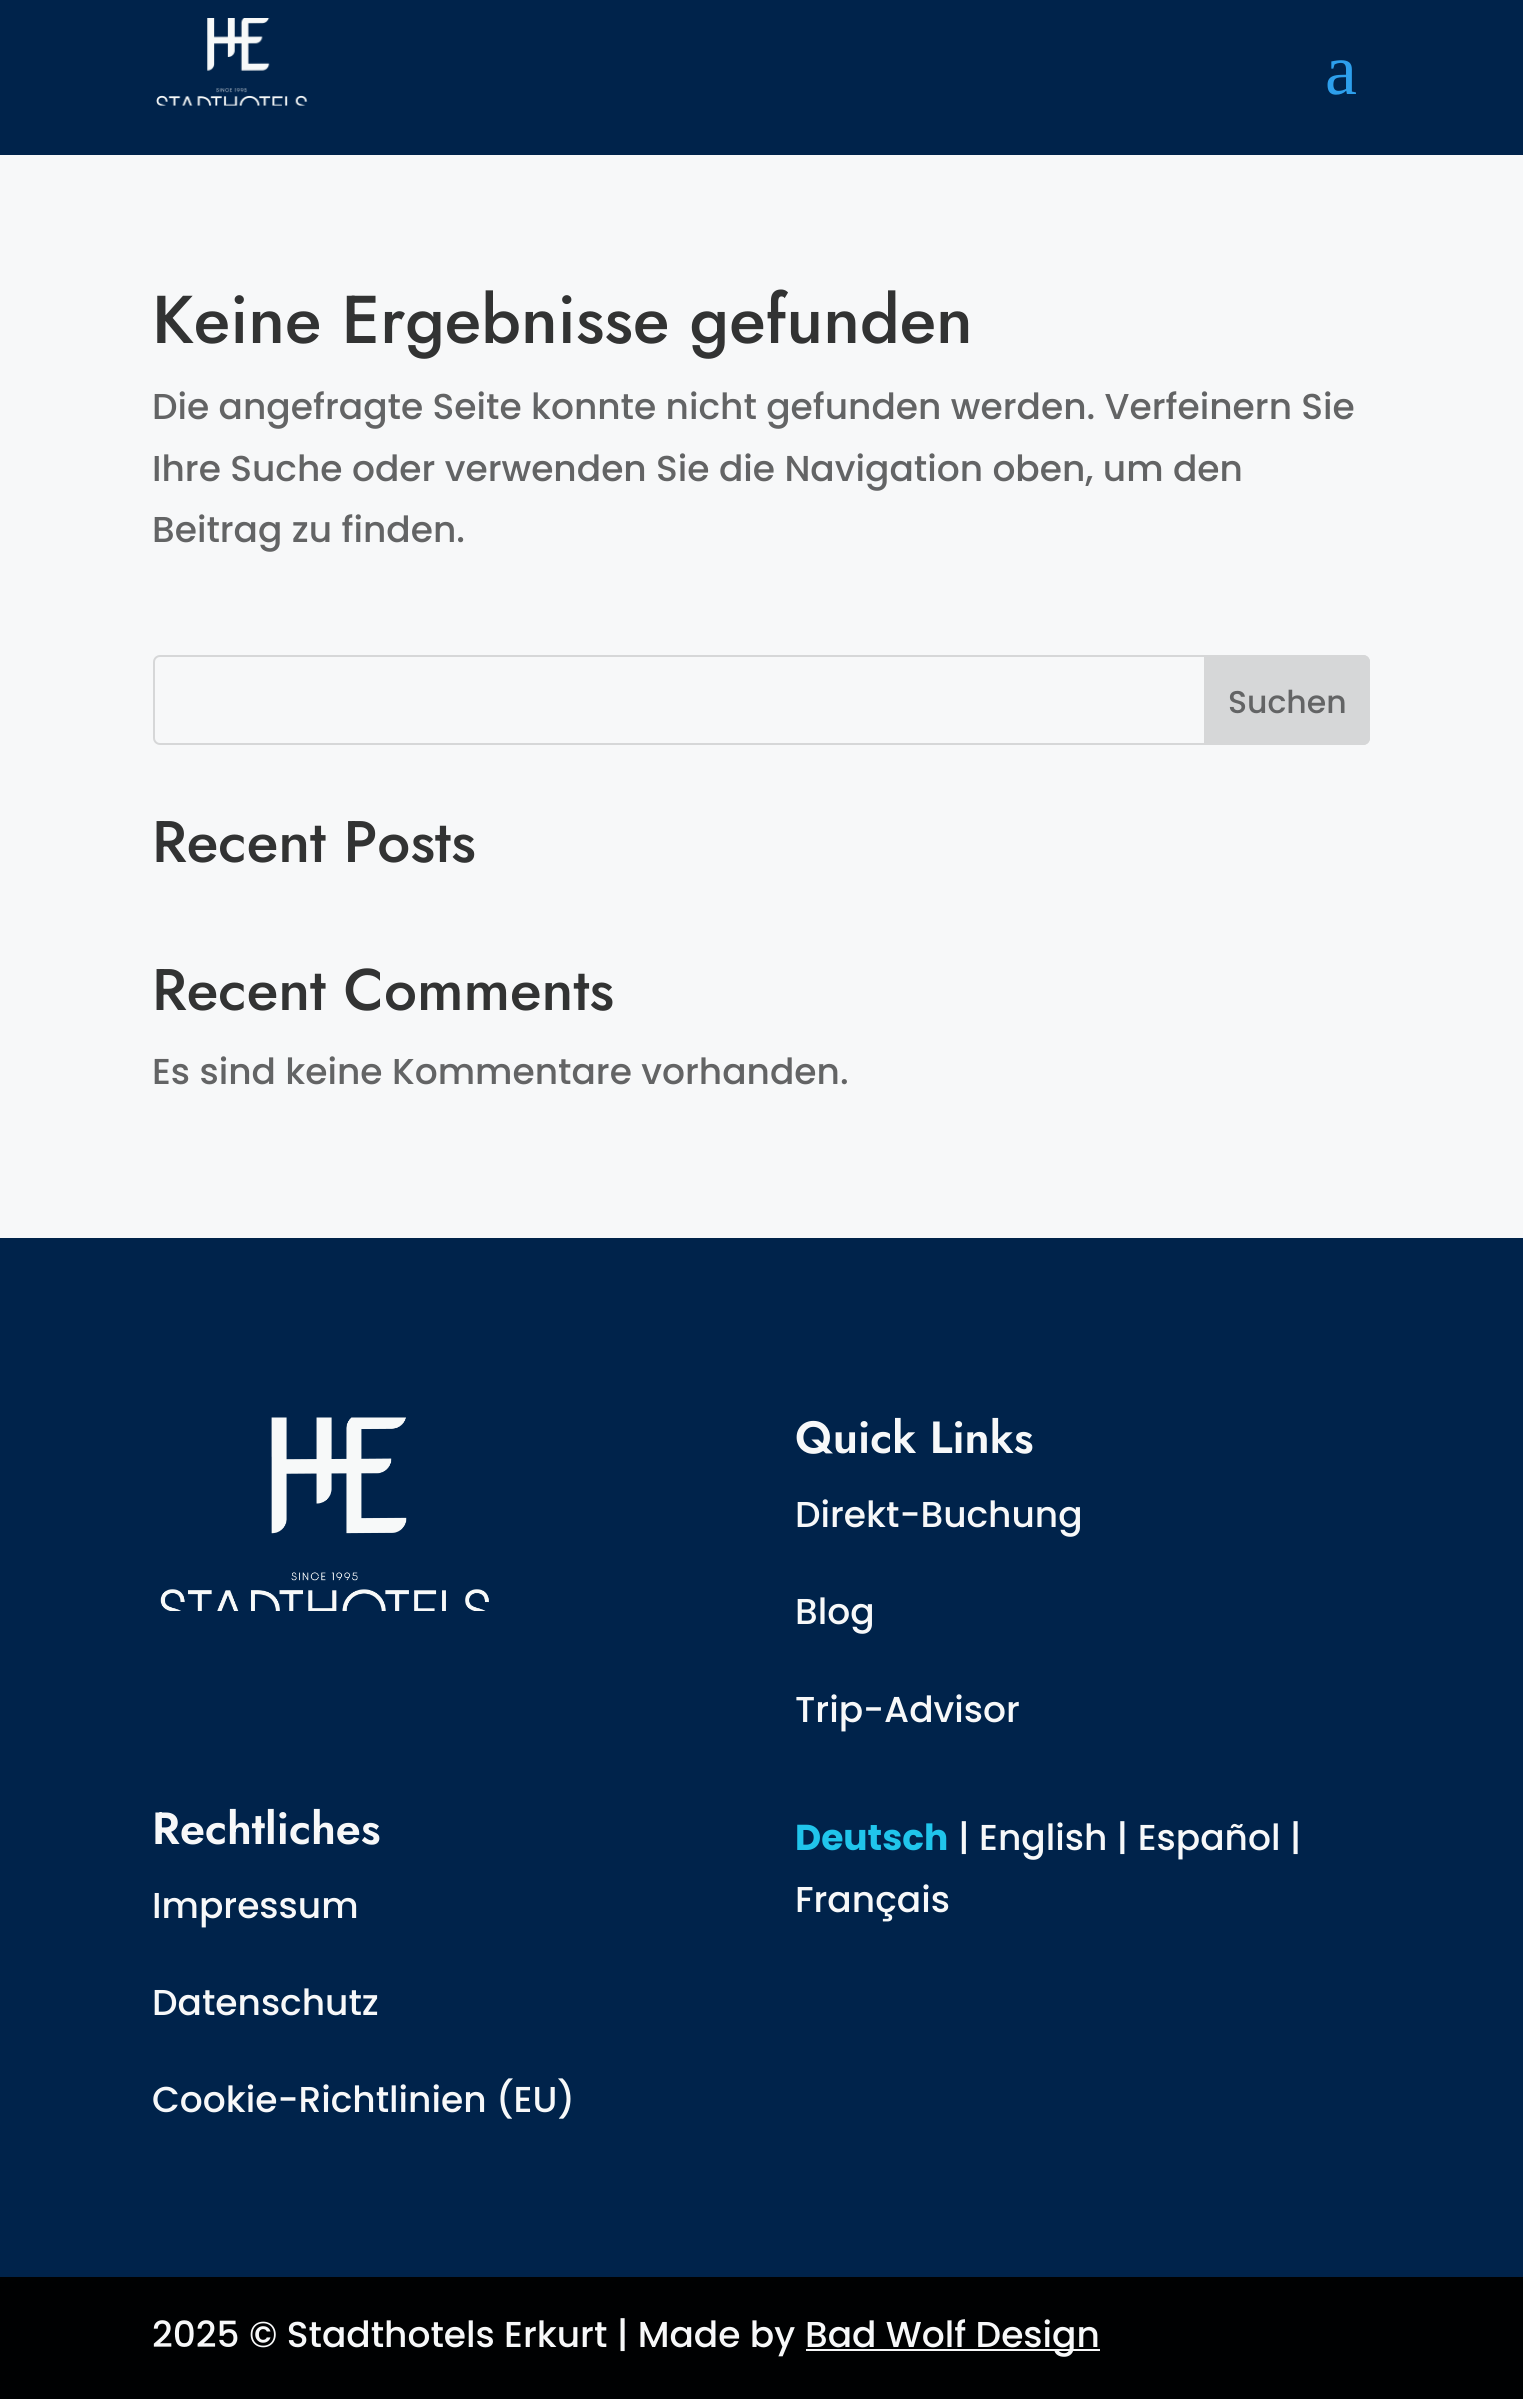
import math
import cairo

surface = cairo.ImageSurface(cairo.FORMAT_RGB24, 1523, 2399)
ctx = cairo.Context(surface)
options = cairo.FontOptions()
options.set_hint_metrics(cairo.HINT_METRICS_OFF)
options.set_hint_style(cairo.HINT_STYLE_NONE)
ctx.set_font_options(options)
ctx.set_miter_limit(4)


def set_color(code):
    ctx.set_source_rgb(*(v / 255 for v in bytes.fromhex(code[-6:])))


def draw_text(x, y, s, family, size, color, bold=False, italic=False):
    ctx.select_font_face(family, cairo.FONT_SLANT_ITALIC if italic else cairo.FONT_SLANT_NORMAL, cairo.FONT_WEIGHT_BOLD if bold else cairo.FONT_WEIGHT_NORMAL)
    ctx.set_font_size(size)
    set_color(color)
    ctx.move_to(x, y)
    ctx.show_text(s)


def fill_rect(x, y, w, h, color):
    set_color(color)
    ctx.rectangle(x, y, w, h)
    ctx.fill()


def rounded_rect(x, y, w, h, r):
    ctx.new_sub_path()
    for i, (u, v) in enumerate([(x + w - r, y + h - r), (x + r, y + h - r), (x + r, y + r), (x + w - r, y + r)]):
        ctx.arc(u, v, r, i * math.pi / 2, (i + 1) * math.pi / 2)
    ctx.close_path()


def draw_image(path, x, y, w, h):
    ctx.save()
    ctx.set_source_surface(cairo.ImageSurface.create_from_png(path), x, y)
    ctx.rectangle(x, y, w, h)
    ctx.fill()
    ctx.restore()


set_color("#f7f8f9")
ctx.paint()
fill_rect(0, 0, 1523, 155, "#00234b")
draw_image("assets/img1.png", 156, 18, 152, 88)
draw_text(1325, 94, "a", "Liberation Serif", 72, "#2d9fec")
draw_text(152, 343, "Keine Ergebnisse gefunden", "Jost Medium", 67.5, "#323333")
draw_text(152, 419, "Die angefragte Seite konnte nicht gefunden werden. Verfeinern Sie", "Poppins Medium", 36, "#636465")
draw_text(152, 481, "Ihre Suche oder verwenden Sie die Navigation oben, um den", "Poppins Medium", 36, "#636465")
draw_text(152, 542, "Beitrag zu finden.", "Poppins Medium", 36, "#636465")
rounded_rect(154, 656, 1215, 88, 6)
set_color("#d6d7d8")
ctx.stroke()
ctx.new_path()
ctx.move_to(1205, 656)
ctx.line_to(1363, 656)
ctx.curve_to(1366.5, 656, 1369, 658.5, 1369, 662)
ctx.line_to(1369, 738)
ctx.curve_to(1369, 741.5, 1366.5, 744, 1363, 744)
ctx.line_to(1205, 744)
ctx.close_path()
ctx.fill_preserve()
ctx.stroke()
draw_text(1228, 713, "Suchen", "Poppins Medium", 31.5, "#636465")
draw_text(152, 862, "Recent Posts", "Jost Medium", 58.5, "#323333")
draw_text(152, 1010, "Recent Comments", "Jost Medium", 58.5, "#323333")
draw_text(152, 1084, "Es sind keine Kommentare vorhanden.", "Poppins Medium", 36, "#636465")
fill_rect(0, 1238, 1523, 1039, "#00234b")
draw_image("assets/img2.png", 160, 1417, 329, 194)
draw_text(795, 1453, "Quick Links", "Jost SemiBold", 45, "#f7f8f9")
draw_text(795, 1527, "Direkt-Buchung", "Poppins Medium", 36, "#f7f8f9")
draw_text(795, 1624, "Blog", "Poppins Medium", 36, "#f7f8f9")
draw_text(795, 1722, "Trip-Advisor", "Poppins Medium", 36, "#f7f8f9")
draw_text(152, 1844, "Rechtliches", "Jost SemiBold", 45, "#f7f8f9")
draw_text(152, 1918, "Impressum", "Poppins Medium", 36, "#f7f8f9")
draw_text(152, 2015, "Datenschutz", "Poppins Medium", 36, "#f7f8f9")
draw_text(152, 2112, "Cookie-Richtlinien (EU)", "Poppins Medium", 36, "#f7f8f9")
draw_text(795, 1850, "Deutsch", "Poppins", 36, "#20c5eb", bold=True)
draw_text(958, 1850, "| English | Español |", "Poppins Medium", 36, "#f7f8f9")
draw_text(795, 1912, "Français", "Poppins Medium", 36, "#f7f8f9")
fill_rect(0, 2277, 1523, 122, "#000102")
draw_text(152, 2347, "2025 © Stadthotels Erkurt | Made by", "Poppins Medium", 36, "#f7f8f9")
fill_rect(806, 2349, 294, 2, "#f7f8f9")
draw_text(805, 2347, "Bad Wolf Design", "Poppins Medium", 36, "#f7f8f9")
surface.write_to_png("output.png")
